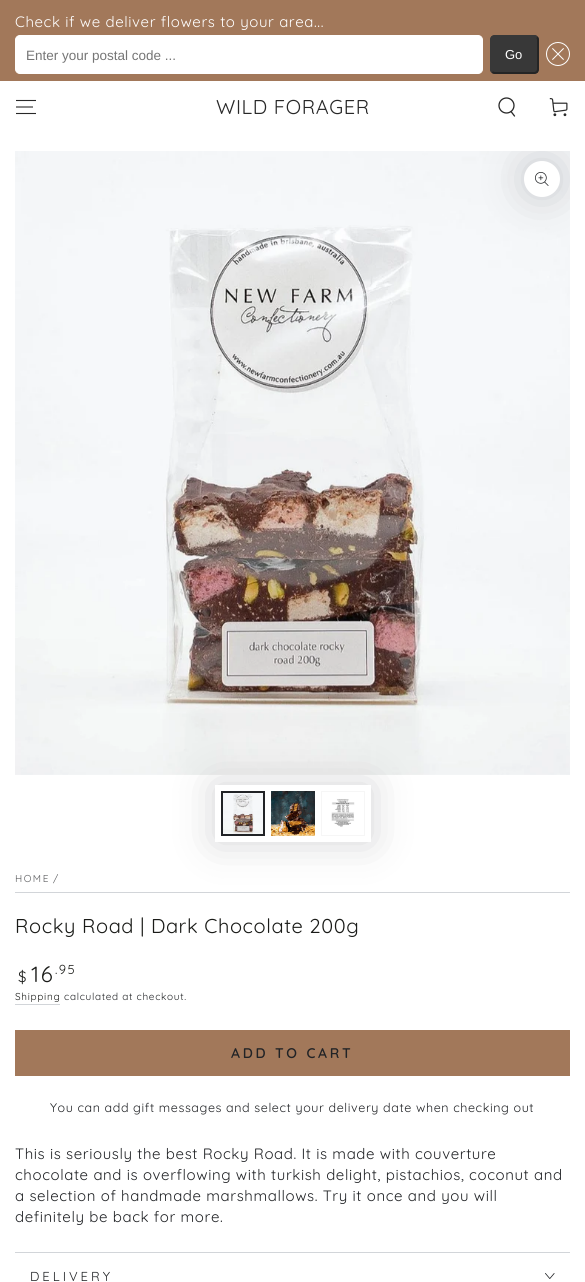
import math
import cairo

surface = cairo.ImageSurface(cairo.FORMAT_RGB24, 585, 1282)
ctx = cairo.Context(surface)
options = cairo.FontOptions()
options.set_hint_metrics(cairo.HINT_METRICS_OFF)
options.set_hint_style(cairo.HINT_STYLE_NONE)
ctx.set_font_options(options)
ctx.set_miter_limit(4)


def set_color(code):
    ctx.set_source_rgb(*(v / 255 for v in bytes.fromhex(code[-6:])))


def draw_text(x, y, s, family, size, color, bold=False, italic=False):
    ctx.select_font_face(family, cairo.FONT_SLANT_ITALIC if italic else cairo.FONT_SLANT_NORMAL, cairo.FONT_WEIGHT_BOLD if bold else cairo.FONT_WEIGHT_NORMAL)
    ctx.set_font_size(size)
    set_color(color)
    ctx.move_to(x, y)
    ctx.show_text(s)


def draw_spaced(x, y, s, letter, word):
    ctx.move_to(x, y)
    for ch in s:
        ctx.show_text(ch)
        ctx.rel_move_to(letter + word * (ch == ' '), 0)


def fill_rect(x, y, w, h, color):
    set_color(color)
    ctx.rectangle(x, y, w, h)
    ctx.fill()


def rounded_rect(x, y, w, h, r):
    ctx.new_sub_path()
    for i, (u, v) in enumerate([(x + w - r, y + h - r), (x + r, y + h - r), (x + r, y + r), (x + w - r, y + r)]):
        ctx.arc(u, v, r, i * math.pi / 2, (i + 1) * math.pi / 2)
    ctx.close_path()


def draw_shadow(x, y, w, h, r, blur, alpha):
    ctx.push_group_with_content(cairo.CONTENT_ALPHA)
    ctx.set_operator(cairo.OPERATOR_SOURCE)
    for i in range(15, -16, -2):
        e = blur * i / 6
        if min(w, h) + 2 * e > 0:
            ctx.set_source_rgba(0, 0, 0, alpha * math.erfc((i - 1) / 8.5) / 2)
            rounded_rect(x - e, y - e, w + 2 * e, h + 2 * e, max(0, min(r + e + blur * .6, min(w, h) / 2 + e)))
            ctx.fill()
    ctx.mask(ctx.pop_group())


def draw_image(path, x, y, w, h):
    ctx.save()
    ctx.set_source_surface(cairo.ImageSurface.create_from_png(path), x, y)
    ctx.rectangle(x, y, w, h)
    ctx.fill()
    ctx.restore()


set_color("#ffffff")
ctx.paint()
fill_rect(0, 0, 585, 81, "#a2785a")
ctx.select_font_face("Quicksand")
ctx.set_font_size(15)
set_color("#ffffff")
draw_spaced(15, 27, "Check if we deliver flowers to your area...", 0.6, 0)
rounded_rect(15.5, 35.5, 467, 38, 4.5)
ctx.fill_preserve()
ctx.set_line_width(1)
ctx.stroke()
draw_text(26, 60, "Enter your postal code ...", "Liberation Sans", 13.5, "#757575")
set_color("#383838")
rounded_rect(490, 35, 49, 39, 5)
ctx.fill()
ctx.new_path()
ctx.move_to(537, 37)
ctx.curve_to(537.5, 38, 538, 39, 538, 40)
ctx.line_to(538, 69)
ctx.curve_to(538, 70, 537.5, 71, 537, 72)
ctx.curve_to(536, 72.5, 535, 73, 534, 73)
ctx.line_to(495, 73)
ctx.curve_to(494, 73, 493, 72.5, 492, 72)
set_color("#252525")
ctx.set_line_width(2)
ctx.stroke()
ctx.new_path()
ctx.move_to(492, 72)
ctx.curve_to(491.5, 71, 491, 70, 491, 69)
ctx.line_to(491, 40)
ctx.curve_to(491, 39, 491.5, 38, 492, 37)
ctx.curve_to(493, 36.5, 494, 36, 495, 36)
ctx.line_to(534, 36)
ctx.curve_to(535, 36, 536, 36.5, 537, 37)
set_color("#383838")
ctx.stroke()
draw_text(505, 59, "Go", "Liberation Sans", 13, "#ffffff")
draw_image("assets/img1.png", 546, 42, 24, 24)
ctx.new_path()
ctx.move_to(16, 113.5)
ctx.line_to(36, 113.5)
ctx.move_to(16, 107)
ctx.line_to(33, 107)
ctx.move_to(16, 100.5)
ctx.line_to(36, 100.5)
set_color("#282828")
ctx.set_line_width(1.1)
ctx.stroke()
ctx.select_font_face("Quicksand")
ctx.set_font_size(20)
draw_spaced(216, 114, "WILD FORAGER", 0.6, 0)
draw_image("assets/img4.png", 15, 151, 555, 624)
ctx.save()
ctx.rectangle(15, 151, 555, 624)
ctx.clip()
set_color("#212326")
draw_shadow(524, 161, 36, 36, 18, 20, 0.2)
ctx.restore()
ctx.arc(506.5, 105.5, 7.5, 0, 2 * math.pi)
ctx.set_line_width(1.3)
ctx.stroke()
ctx.new_path()
ctx.move_to(511, 111.5)
ctx.line_to(514.5, 116)
ctx.set_line_cap(cairo.LINE_CAP_ROUND)
ctx.stroke()
draw_image("assets/img2.png", 549, 98, 19, 19)
set_color("#ffffff")
ctx.arc(542, 179, 18, 0, 2 * math.pi)
ctx.fill()
draw_image("assets/img3.png", 535, 172, 14, 14)
fill_rect(15, 892, 555, 1, "#d2d5d9")
ctx.save()
ctx.set_fill_rule(cairo.FILL_RULE_EVEN_ODD)
ctx.new_path()
ctx.move_to(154, 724)
ctx.line_to(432, 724)
ctx.line_to(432, 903)
ctx.line_to(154, 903)
ctx.close_path()
ctx.move_to(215, 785)
ctx.line_to(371, 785)
ctx.line_to(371, 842)
ctx.line_to(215, 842)
ctx.close_path()
ctx.clip()
set_color("#212326")
draw_shadow(215, 785, 156, 57, 0, 20, 0.2)
ctx.restore()
draw_image("assets/img5.png", 223, 793, 40, 41)
ctx.rectangle(222, 792, 42, 43)
set_color("#212326")
ctx.set_line_width(2)
ctx.set_line_cap(cairo.LINE_CAP_BUTT)
ctx.stroke()
draw_image("assets/img6.png", 271, 791, 44, 45)
ctx.rectangle(271.5, 791.5, 43, 44)
ctx.set_source_rgba(0.129, 0.137, 0.149, 0.04)
ctx.set_line_width(1)
ctx.stroke()
draw_image("assets/img7.png", 322, 792, 42, 43)
ctx.rectangle(321.5, 791.5, 43, 44)
set_color("#f6f6f6")
ctx.stroke()
ctx.set_font_size(10)
set_color("#595a5c")
draw_spaced(15, 882, "HOME", 1.5, 0)
draw_spaced(53, 882, "/", 1.5, 0)
ctx.set_font_size(20)
set_color("#1a1b18")
draw_spaced(15, 933, "Rocky Road | Dark Chocolate 200g", 0.6, 0)
ctx.set_font_size(15)
draw_spaced(18, 982, "$", 1.5, 0)
ctx.set_font_size(22)
draw_spaced(31, 982, "16", 1.5, 0)
ctx.set_font_size(13)
draw_spaced(55, 974, ".95", 1.5, 0)
ctx.set_font_size(10)
draw_spaced(15, 1000, "Shipping", 0.7, 0)
fill_rect(15, 1004, 45, 1, "#d2d5d9")
set_color("#212326")
draw_spaced(64, 1000, "calculated at checkout.", 0.7, 0)
fill_rect(15, 1030, 555, 46, "#a2785a")
ctx.select_font_face("Quicksand SemiBold")
ctx.set_font_size(14)
set_color("#212326")
draw_spaced(231, 1058, "ADD TO CART", 2.75, 0)
ctx.select_font_face("Quicksand")
ctx.set_font_size(12.5)
draw_spaced(50, 1112, "You can add gift messages and select your delivery date when checking out", 0.6, 0)
ctx.set_font_size(15)
draw_spaced(15, 1159, "This is seriously the best Rocky Road. It is made with couverture", 0.6, 0)
draw_spaced(15, 1180, "chocolate and is overflowing with turkish delight, pistachios, coconut and", 0.6, 0)
draw_spaced(15, 1201, "a selection of handmade marshmallows. Try it once and you will", 0.6, 0)
draw_spaced(15, 1222, "definitely be back for more.", 0.6, 0)
fill_rect(15, 1252, 555, 1, "#d2d5d9")
ctx.set_font_size(13)
set_color("#212326")
draw_spaced(30, 1281, "DELIVERY", 3, 0)
draw_image("assets/img8.png", 545, 1273, 10, 6)
surface.write_to_png("output.png")
